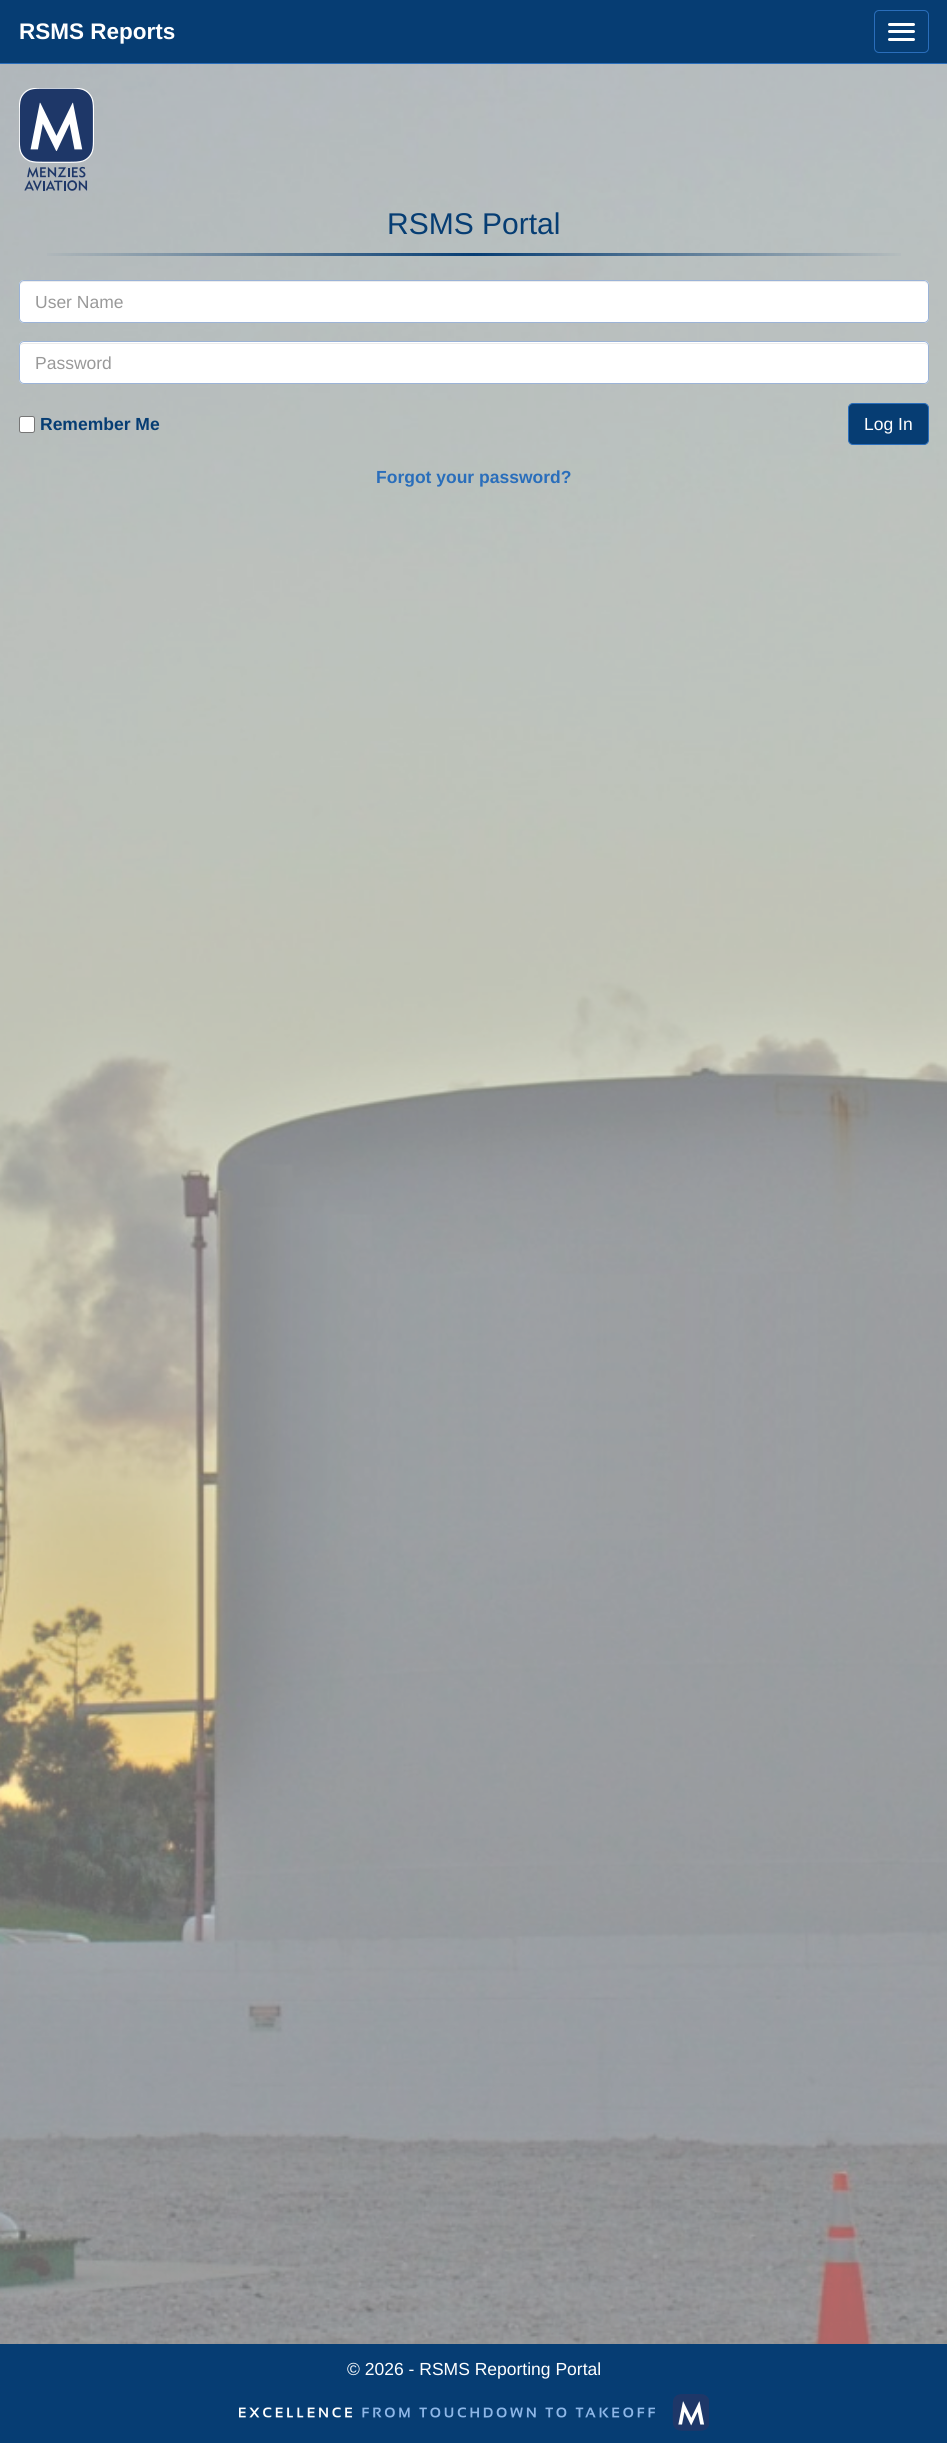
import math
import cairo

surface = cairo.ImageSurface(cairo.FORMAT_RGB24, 947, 2443)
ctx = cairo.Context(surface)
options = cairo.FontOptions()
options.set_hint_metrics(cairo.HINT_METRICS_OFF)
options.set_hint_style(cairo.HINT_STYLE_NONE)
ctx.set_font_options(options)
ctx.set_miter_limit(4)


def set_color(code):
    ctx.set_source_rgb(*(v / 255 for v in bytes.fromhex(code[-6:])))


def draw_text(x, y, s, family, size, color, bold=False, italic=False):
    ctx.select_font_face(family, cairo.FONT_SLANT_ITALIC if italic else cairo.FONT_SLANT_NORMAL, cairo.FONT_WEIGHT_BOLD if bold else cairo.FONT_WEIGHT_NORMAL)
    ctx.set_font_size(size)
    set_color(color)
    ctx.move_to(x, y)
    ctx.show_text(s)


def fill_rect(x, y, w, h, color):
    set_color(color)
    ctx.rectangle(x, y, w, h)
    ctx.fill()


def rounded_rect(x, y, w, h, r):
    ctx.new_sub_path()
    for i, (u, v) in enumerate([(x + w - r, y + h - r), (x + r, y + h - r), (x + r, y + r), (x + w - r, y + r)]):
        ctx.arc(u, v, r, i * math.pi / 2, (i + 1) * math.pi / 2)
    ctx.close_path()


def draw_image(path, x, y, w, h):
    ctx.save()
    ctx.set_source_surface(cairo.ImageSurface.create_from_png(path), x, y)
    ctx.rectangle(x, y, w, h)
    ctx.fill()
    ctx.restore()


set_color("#ffffff")
ctx.paint()
fill_rect(0, 0, 947, 63, "#063d73")
fill_rect(0, 63, 947, 1, "#2a6ebb")
draw_text(19, 39, "RSMS Reports", "Liberation Sans", 22.5, "#ffffff", bold=True)
rounded_rect(874.5, 10.5, 54, 42, 4.5)
set_color("#2a6ebb")
ctx.set_line_width(1)
ctx.stroke()
set_color("#ffffff")
rounded_rect(888, 23, 27, 3, 1.5)
ctx.fill()
rounded_rect(888, 30, 27, 3, 1.5)
ctx.fill()
rounded_rect(888, 38, 27, 3, 1.5)
ctx.fill()
draw_image("assets/img1.png", 0, 64, 947, 2280)
draw_image("assets/img2.png", 19, 88, 75, 103)
draw_text(387, 234, "RSMS Portal", "Liberation Sans", 30, "#063d73")
gradient = cairo.LinearGradient(38, 254, 910, 254)
gradient.add_color_stop_rgba(0, 0.024, 0.239, 0.451, 0)
gradient.add_color_stop_rgba(0.5, 0.024, 0.239, 0.451, 1)
gradient.add_color_stop_rgba(1, 0.024, 0.239, 0.451, 0)
ctx.set_source(gradient)
ctx.rectangle(47, 253, 854, 3)
ctx.fill()
set_color("#ffffff")
rounded_rect(19, 280, 910, 43, 5)
ctx.fill()
set_color("#ececec")
ctx.new_path()
ctx.move_to(24, 282)
ctx.line_to(924, 282)
ctx.curve_to(926, 282, 928, 284, 928, 286)
ctx.curve_to(928, 283, 927, 281, 924, 281)
ctx.line_to(24, 281)
ctx.curve_to(21, 281, 20, 283, 20, 286)
ctx.curve_to(20, 284, 22, 282, 24, 282)
ctx.close_path()
ctx.fill()
rounded_rect(19.5, 280.5, 909, 42, 4.5)
set_color("#9bb3d7")
ctx.stroke()
draw_text(35, 308, "User Name", "Liberation Sans", 17.5, "#999999")
set_color("#ffffff")
rounded_rect(19, 341, 910, 43, 5)
ctx.fill()
set_color("#ececec")
ctx.new_path()
ctx.move_to(24, 344)
ctx.line_to(924, 344)
ctx.curve_to(926, 344, 928, 345, 928, 348)
ctx.curve_to(928, 345, 927, 343, 924, 343)
ctx.line_to(24, 343)
ctx.curve_to(21, 343, 20, 345, 20, 348)
ctx.curve_to(20, 345, 22, 344, 24, 344)
ctx.close_path()
ctx.fill()
rounded_rect(19.5, 341.5, 909, 42, 4.5)
set_color("#9bb3d7")
ctx.stroke()
draw_text(35, 369, "Password", "Liberation Sans", 17.5, "#999999")
set_color("#ffffff")
rounded_rect(19.5, 416.5, 15, 16, 2)
ctx.fill_preserve()
set_color("#767676")
ctx.stroke()
draw_text(40, 430, "Remember Me", "Liberation Sans", 17.5, "#063d73", bold=True)
rounded_rect(848.5, 403.5, 80, 41, 4.5)
ctx.fill_preserve()
set_color("#2a6ebb")
ctx.stroke()
draw_text(864, 430, "Log In", "Liberation Sans", 17.5, "#ffffff")
draw_text(376, 483, "Forgot your password?", "Liberation Sans", 17.5, "#2a6ebb", bold=True)
fill_rect(0, 2344, 947, 99, "#063d73")
draw_text(347, 2375, "© 2026 - RSMS Reporting Portal", "Liberation Sans", 17.5, "#ffffff")
draw_image("assets/img3.png", 239, 2394, 470, 37)
surface.write_to_png("output.png")
